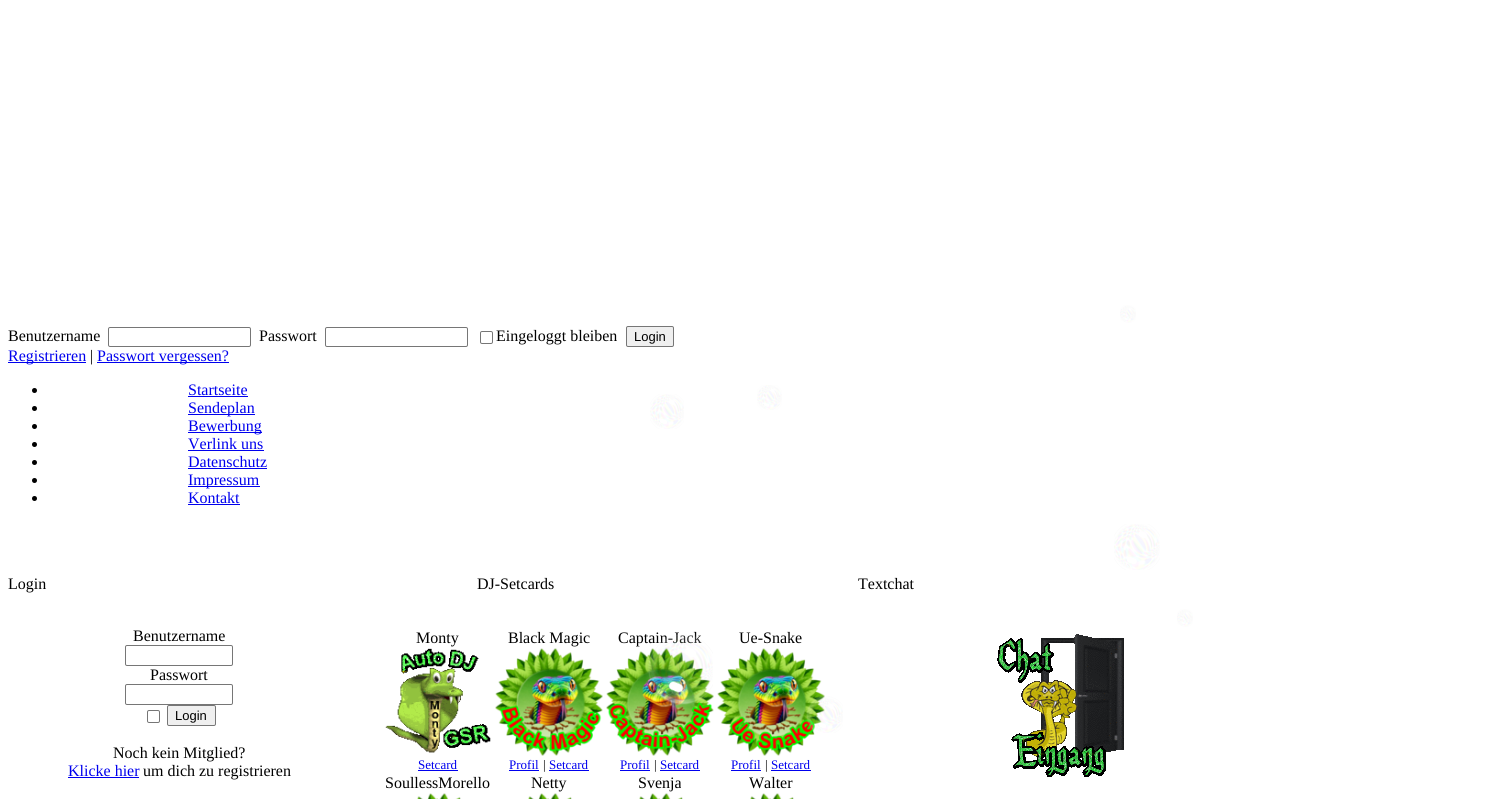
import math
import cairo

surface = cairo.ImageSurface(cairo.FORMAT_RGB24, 1502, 799)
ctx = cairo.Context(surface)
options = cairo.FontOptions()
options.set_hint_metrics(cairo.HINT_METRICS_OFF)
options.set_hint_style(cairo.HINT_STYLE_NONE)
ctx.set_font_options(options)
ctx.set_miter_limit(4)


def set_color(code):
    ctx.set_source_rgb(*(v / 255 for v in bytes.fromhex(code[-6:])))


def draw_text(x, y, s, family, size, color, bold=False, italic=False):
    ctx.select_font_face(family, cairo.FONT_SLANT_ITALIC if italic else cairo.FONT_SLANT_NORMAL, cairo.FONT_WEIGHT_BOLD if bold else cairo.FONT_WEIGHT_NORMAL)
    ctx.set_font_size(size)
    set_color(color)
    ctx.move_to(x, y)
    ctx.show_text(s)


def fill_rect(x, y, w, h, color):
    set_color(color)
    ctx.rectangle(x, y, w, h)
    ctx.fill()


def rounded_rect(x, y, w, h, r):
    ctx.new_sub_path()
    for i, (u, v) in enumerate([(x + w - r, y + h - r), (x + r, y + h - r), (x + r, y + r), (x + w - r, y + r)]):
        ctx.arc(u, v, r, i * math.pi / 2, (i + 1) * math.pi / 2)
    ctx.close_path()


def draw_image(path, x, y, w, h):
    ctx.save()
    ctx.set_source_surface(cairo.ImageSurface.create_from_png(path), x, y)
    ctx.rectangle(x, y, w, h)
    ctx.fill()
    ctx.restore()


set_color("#ffffff")
ctx.paint()
draw_text(8, 341, "Benutzername", "Liberation Serif", 16, "#000000")
rounded_rect(108.5, 327.5, 142, 19, 1.5)
set_color("#767676")
ctx.set_line_width(1)
ctx.stroke()
draw_text(259, 341, "Passwort", "Liberation Serif", 16, "#000000")
rounded_rect(325.5, 327.5, 142, 19, 1.5)
set_color("#767676")
ctx.stroke()
rounded_rect(480.5, 331.5, 12, 12, 1.5)
ctx.stroke()
draw_text(496, 341, "Eingeloggt bleiben", "Liberation Serif", 16, "#000000")
set_color("#efefef")
rounded_rect(626.5, 326.5, 47, 20, 1.5)
ctx.fill_preserve()
set_color("#767676")
ctx.stroke()
draw_text(634, 341, "Login", "Liberation Sans", 13, "#000000")
fill_rect(8, 362, 78, 1, "#0000ee")
draw_text(8, 361, "Registrieren", "Liberation Serif", 16, "#0000ee")
draw_text(90, 361, "|", "Liberation Serif", 16, "#000000")
fill_rect(97, 362, 132, 1, "#0000ee")
draw_text(97, 361, "Passwort vergessen?", "Liberation Serif", 16, "#0000ee")
set_color("#000000")
ctx.new_path()
ctx.arc(34.5, 390.5, 2.5, 0, 2 * math.pi)
ctx.fill()
draw_text(188, 395, "Startseite", "Liberation Serif", 16, "#0000ee")
fill_rect(188, 396, 60, 1, "#0000ee")
set_color("#000000")
ctx.new_path()
ctx.arc(34.5, 408.5, 2.5, 0, 2 * math.pi)
ctx.fill()
fill_rect(188, 414, 67, 1, "#0000ee")
draw_text(188, 413, "Sendeplan", "Liberation Serif", 16, "#0000ee")
set_color("#000000")
ctx.new_path()
ctx.arc(34.5, 426.5, 2.5, 0, 2 * math.pi)
ctx.fill()
fill_rect(188, 432, 74, 1, "#0000ee")
draw_text(188, 431, "Bewerbung", "Liberation Serif", 16, "#0000ee")
set_color("#000000")
ctx.new_path()
ctx.arc(34.5, 444.5, 2.5, 0, 2 * math.pi)
ctx.fill()
draw_text(188, 449, "Verlink uns", "Liberation Serif", 16, "#0000ee")
fill_rect(188, 450, 76, 1, "#0000ee")
set_color("#000000")
ctx.new_path()
ctx.arc(34.5, 462.5, 2.5, 0, 2 * math.pi)
ctx.fill()
draw_text(188, 467, "Datenschutz", "Liberation Serif", 16, "#0000ee")
fill_rect(188, 468, 79, 1, "#0000ee")
set_color("#000000")
ctx.new_path()
ctx.arc(34.5, 480.5, 2.5, 0, 2 * math.pi)
ctx.fill()
fill_rect(188, 486, 72, 1, "#0000ee")
draw_text(188, 485, "Impressum", "Liberation Serif", 16, "#0000ee")
set_color("#000000")
ctx.new_path()
ctx.arc(34.5, 498.5, 2.5, 0, 2 * math.pi)
ctx.fill()
draw_text(188, 503, "Kontakt", "Liberation Serif", 16, "#0000ee")
fill_rect(188, 504, 52, 1, "#0000ee")
draw_text(8, 589, "Login", "Liberation Serif", 16, "#000000")
draw_text(133, 641, "Benutzername", "Liberation Serif", 16, "#000000")
rounded_rect(125.5, 645.5, 107, 20, 1.5)
set_color("#767676")
ctx.stroke()
draw_text(150, 680, "Passwort", "Liberation Serif", 16, "#000000")
rounded_rect(125.5, 684.5, 107, 20, 1.5)
set_color("#767676")
ctx.stroke()
rounded_rect(147.5, 710.5, 12, 12, 1.5)
ctx.stroke()
set_color("#efefef")
rounded_rect(167.5, 705.5, 48, 20, 1.5)
ctx.fill_preserve()
set_color("#767676")
ctx.stroke()
draw_text(175, 720, "Login", "Liberation Sans", 13, "#000000")
draw_text(113, 758, "Noch kein Mitglied?", "Liberation Serif", 16, "#000000")
draw_text(68, 776, "Klicke hier", "Liberation Serif", 16, "#0000ee")
fill_rect(68, 777, 71, 1, "#0000ee")
draw_text(143, 776, "um dich zu registrieren", "Liberation Serif", 16, "#000000")
draw_text(477, 589, "DJ-Setcards", "Liberation Serif", 16, "#000000")
draw_image("assets/img1.png", 1120, 305, 16, 18)
draw_image("assets/img2.png", 650, 394, 34, 35)
draw_image("assets/img3.png", 757, 385, 25, 25)
draw_image("assets/img4.png", 1114, 524, 46, 46)
draw_image("assets/img1.png", 1177, 609, 16, 18)
draw_text(618, 643, "Captain-Jack", "Liberation Serif", 16, "#000000")
draw_image("assets/img9.png", 606, 648, 108, 108)
draw_image("assets/img5.png", 645, 632, 68, 75)
draw_image("assets/img10.png", 717, 648, 108, 108)
draw_image("assets/img6.png", 805, 695, 38, 38)
draw_text(416, 643, "Monty", "Liberation Serif", 16, "#000000")
draw_image("assets/img7.png", 385, 648, 106, 105)
draw_text(418, 769, "Setcard", "Liberation Serif", 13, "#0000ee")
fill_rect(418, 770, 40, 1, "#0000ee")
draw_text(508, 643, "Black Magic", "Liberation Serif", 16, "#000000")
draw_image("assets/img8.png", 495, 648, 108, 108)
draw_text(509, 769, "Profil", "Liberation Serif", 13, "#0000ee")
fill_rect(509, 770, 30, 1, "#0000ee")
draw_text(543, 769, "|", "Liberation Serif", 13, "#000000")
draw_text(549, 769, "Setcard", "Liberation Serif", 13, "#0000ee")
fill_rect(549, 770, 40, 1, "#0000ee")
draw_text(620, 769, "Profil", "Liberation Serif", 13, "#0000ee")
fill_rect(620, 770, 30, 1, "#0000ee")
draw_text(654, 769, "|", "Liberation Serif", 13, "#000000")
draw_text(660, 769, "Setcard", "Liberation Serif", 13, "#0000ee")
fill_rect(660, 770, 40, 1, "#0000ee")
draw_text(739, 643, "Ue-Snake", "Liberation Serif", 16, "#000000")
draw_text(731, 769, "Profil", "Liberation Serif", 13, "#0000ee")
fill_rect(731, 770, 30, 1, "#0000ee")
draw_text(765, 769, "|", "Liberation Serif", 13, "#000000")
draw_text(771, 769, "Setcard", "Liberation Serif", 13, "#0000ee")
fill_rect(771, 770, 40, 1, "#0000ee")
draw_text(385, 788, "SoullessMorello", "Liberation Serif", 16, "#000000")
draw_image("assets/img11.png", 417, 793, 44, 6)
draw_text(531, 788, "Netty", "Liberation Serif", 16, "#000000")
draw_image("assets/img11.png", 528, 793, 44, 6)
draw_text(638, 788, "Svenja", "Liberation Serif", 16, "#000000")
draw_image("assets/img11.png", 639, 793, 44, 6)
draw_text(749, 788, "Walter", "Liberation Serif", 16, "#000000")
draw_image("assets/img11.png", 750, 793, 44, 6)
draw_text(858, 589, "Textchat", "Liberation Serif", 16, "#000000")
draw_image("assets/img12.png", 997, 634, 127, 143)
surface.write_to_png("output.png")
